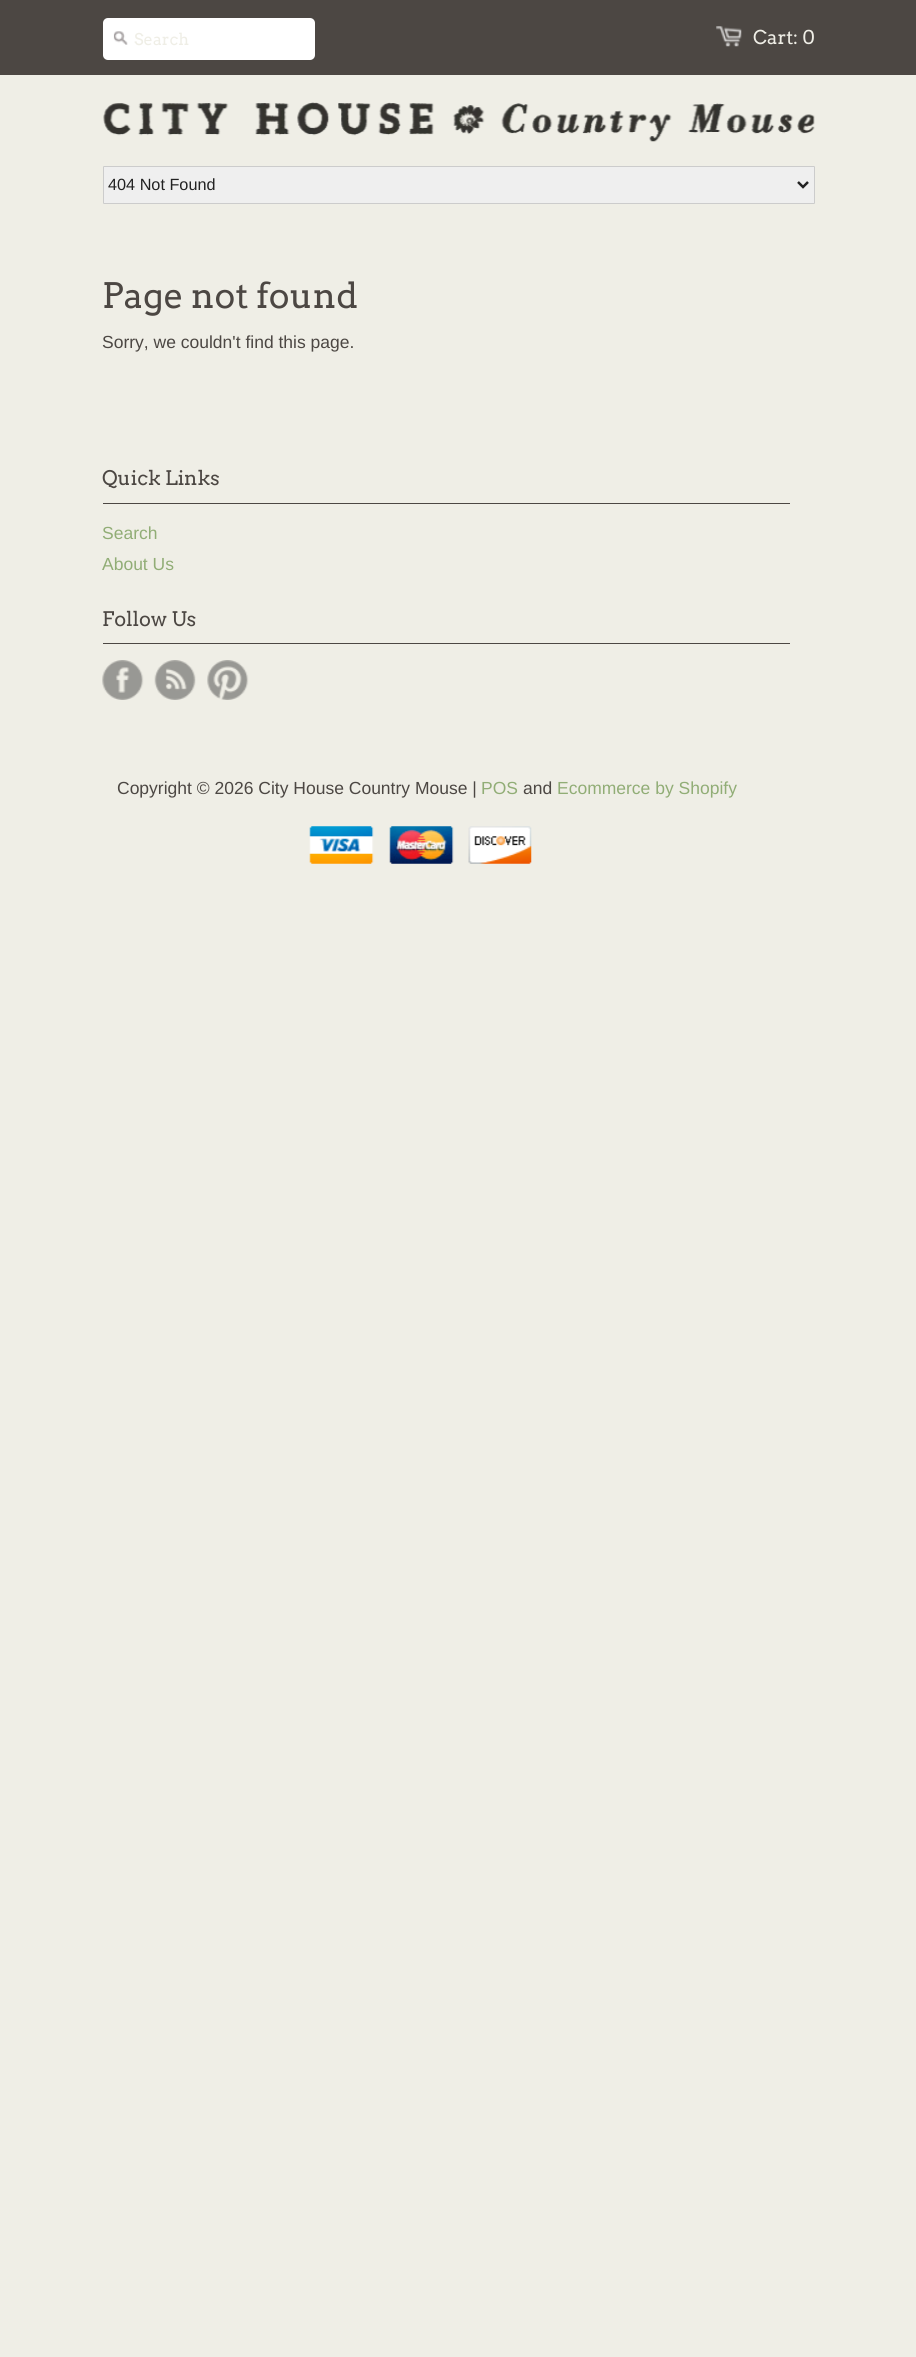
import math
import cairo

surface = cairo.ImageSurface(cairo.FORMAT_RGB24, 916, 2357)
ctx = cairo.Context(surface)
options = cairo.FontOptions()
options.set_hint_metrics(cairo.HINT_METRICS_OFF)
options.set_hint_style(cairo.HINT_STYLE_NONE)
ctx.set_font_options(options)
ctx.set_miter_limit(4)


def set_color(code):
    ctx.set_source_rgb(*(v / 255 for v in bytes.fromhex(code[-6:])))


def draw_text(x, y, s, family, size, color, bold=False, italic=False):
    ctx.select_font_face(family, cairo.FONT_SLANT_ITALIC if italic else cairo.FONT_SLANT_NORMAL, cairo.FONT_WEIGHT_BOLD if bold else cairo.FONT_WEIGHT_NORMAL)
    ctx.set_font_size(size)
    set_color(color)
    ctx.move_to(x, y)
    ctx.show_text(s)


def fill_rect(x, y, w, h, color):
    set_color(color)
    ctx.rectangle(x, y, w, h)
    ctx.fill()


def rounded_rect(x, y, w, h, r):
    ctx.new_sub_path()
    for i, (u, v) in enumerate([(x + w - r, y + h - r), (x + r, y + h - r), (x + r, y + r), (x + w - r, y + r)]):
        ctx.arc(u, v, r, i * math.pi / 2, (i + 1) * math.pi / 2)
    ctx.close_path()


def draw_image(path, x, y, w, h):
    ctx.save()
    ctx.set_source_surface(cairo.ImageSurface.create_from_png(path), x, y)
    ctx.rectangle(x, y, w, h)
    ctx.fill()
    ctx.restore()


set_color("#efeee6")
ctx.paint()
fill_rect(0, 0, 916, 75, "#4c4743")
set_color("#ffffff")
rounded_rect(103, 18, 212, 42, 5)
ctx.fill()
draw_image("assets/img1.png", 113, 31, 15, 14)
draw_text(134, 45, "Search", "Arvo", 16.25, "#efeee6")
draw_image("assets/img2.png", 716, 26, 26, 21)
draw_text(753, 44, "Cart: 0", "Arvo", 19, "#efeee6")
draw_image("assets/img3.png", 103, 102, 712, 40)
set_color("#efefef")
rounded_rect(103.5, 166.5, 711, 37, 0.5)
ctx.fill_preserve()
set_color("#cccccc")
ctx.set_line_width(1)
ctx.stroke()
ctx.new_path()
ctx.move_to(798, 182)
ctx.line_to(803, 187)
ctx.line_to(808, 182)
set_color("#222222")
ctx.set_line_width(2.5)
ctx.stroke()
draw_text(108, 190, "404 Not Found", "Liberation Sans", 16.25, "#222222")
draw_text(102, 308, "Page not found", "Arvo", 35, "#4c4743")
draw_text(102, 348, "Sorry, we couldn't find this page.", "Liberation Sans", 17.5, "#4c4743")
fill_rect(103, 503, 687, 1, "#4c4743")
draw_text(102, 485, "Quick Links", "Arvo", 20, "#4c4743")
draw_text(102, 539, "Search", "Liberation Sans", 17.5, "#91ad76")
draw_text(102, 570, "About Us", "Liberation Sans", 17.5, "#91ad76")
fill_rect(103, 643, 687, 1, "#4c4743")
draw_text(102, 626, "Follow Us", "Arvo", 20, "#4c4743")
draw_image("assets/img4.png", 102, 660, 42, 40)
draw_image("assets/img5.png", 154, 660, 42, 40)
draw_image("assets/img6.png", 207, 660, 42, 40)
draw_text(117, 794, "Copyright © 2026 City House Country Mouse |", "Liberation Sans", 17.5, "#4c4743")
draw_text(481, 794, "POS", "Liberation Sans", 17.5, "#91ad76")
draw_text(523, 794, "and", "Liberation Sans", 17.5, "#4c4743")
draw_text(557, 794, "Ecommerce by Shopify", "Liberation Sans", 17.5, "#91ad76")
draw_image("assets/img7.png", 309, 826, 65, 38)
draw_image("assets/img8.png", 389, 826, 65, 38)
draw_image("assets/img9.png", 468, 826, 64, 38)
surface.write_to_png("output.png")
